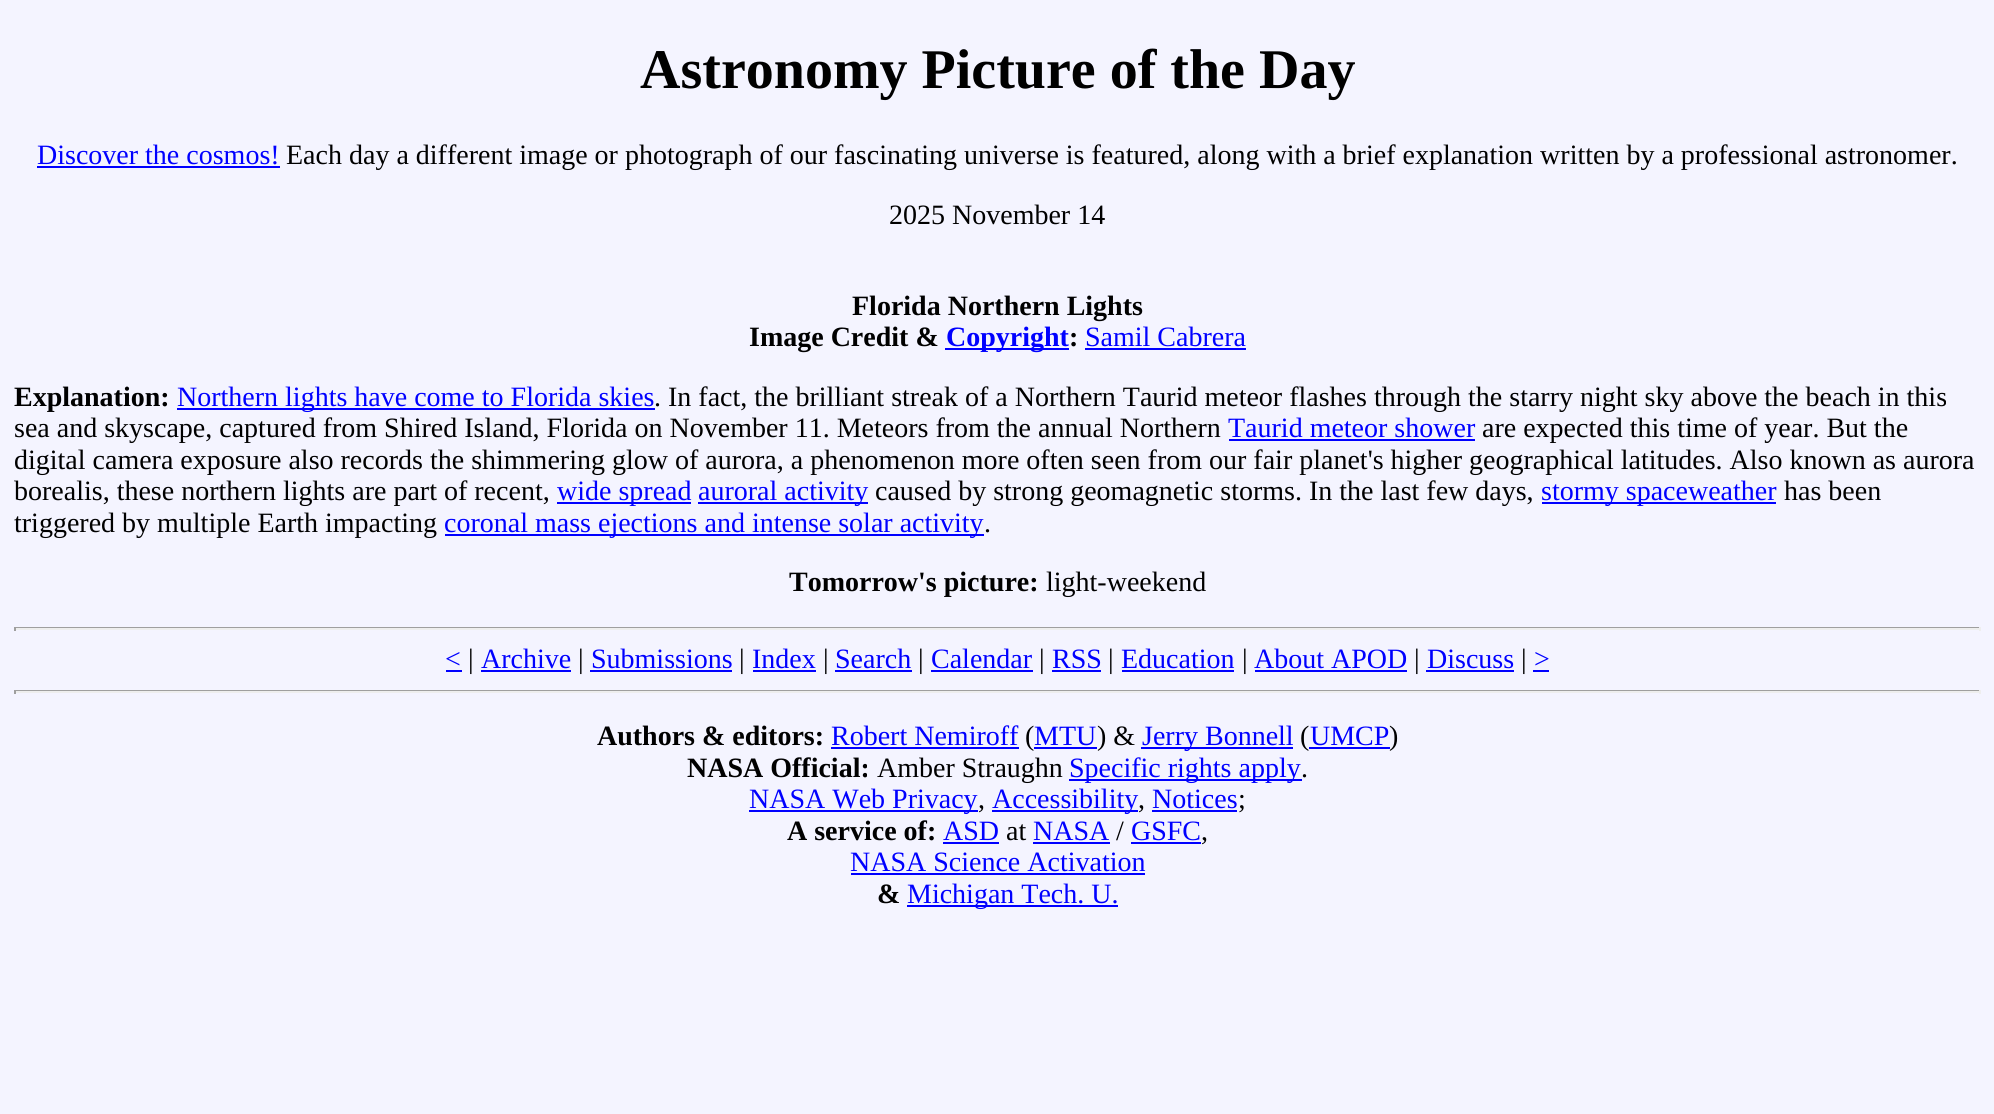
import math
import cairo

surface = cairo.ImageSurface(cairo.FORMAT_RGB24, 1994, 1114)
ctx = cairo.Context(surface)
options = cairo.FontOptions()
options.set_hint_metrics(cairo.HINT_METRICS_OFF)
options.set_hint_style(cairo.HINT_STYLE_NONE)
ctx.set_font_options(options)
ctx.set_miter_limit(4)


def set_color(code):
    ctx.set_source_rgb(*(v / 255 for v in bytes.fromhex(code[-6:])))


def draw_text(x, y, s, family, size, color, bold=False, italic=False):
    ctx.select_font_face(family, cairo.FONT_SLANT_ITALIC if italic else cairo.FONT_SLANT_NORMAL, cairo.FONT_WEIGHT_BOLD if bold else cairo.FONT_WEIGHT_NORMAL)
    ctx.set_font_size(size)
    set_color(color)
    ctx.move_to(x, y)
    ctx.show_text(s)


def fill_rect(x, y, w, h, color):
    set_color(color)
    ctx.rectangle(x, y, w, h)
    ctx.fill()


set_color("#f4f4ff")
ctx.paint()
draw_text(640, 88, "Astronomy Picture of the Day", "Liberation Serif", 56, "#000000", bold=True)
draw_text(37, 164, "Discover the cosmos!", "Liberation Serif", 28, "#0000ff")
fill_rect(37, 166, 243, 2, "#0000ff")
draw_text(286, 164, "Each day a different image or photograph of our fascinating universe is featured, along with a brief explanation written by a professional astronomer.", "Liberation Serif", 28, "#000000")
draw_text(889, 224, "2025 November 14", "Liberation Serif", 28, "#000000")
draw_text(852, 315, "Florida Northern Lights", "Liberation Serif", 28, "#000000", bold=True)
draw_text(749, 346, "Image Credit &", "Liberation Serif", 28, "#000000", bold=True)
fill_rect(945, 348, 124, 2, "#0000ff")
draw_text(946, 346, "Copyright", "Liberation Serif", 28, "#0000ff", bold=True)
draw_text(1069, 346, ":", "Liberation Serif", 28, "#000000", bold=True)
draw_text(1085, 346, "Samil Cabrera", "Liberation Serif", 28, "#0000ff")
fill_rect(1085, 348, 161, 2, "#0000ff")
draw_text(14, 406, "Explanation:", "Liberation Serif", 28, "#000000", bold=True)
fill_rect(177, 408, 478, 2, "#0000ff")
draw_text(177, 406, "Northern lights have come to Florida skies", "Liberation Serif", 28, "#0000ff")
draw_text(654, 406, ". In fact, the brilliant streak of a Northern Taurid meteor flashes through the starry night sky above the beach in this", "Liberation Serif", 28, "#000000")
draw_text(14, 437, "sea and skyscape, captured from Shired Island, Florida on November 11. Meteors from the annual Northern", "Liberation Serif", 28, "#000000")
draw_text(1228, 437, "Taurid meteor shower", "Liberation Serif", 28, "#0000ff")
fill_rect(1229, 439, 246, 2, "#0000ff")
draw_text(1482, 437, "are expected this time of year. But the", "Liberation Serif", 28, "#000000")
draw_text(14, 469, "digital camera exposure also records the shimmering glow of aurora, a phenomenon more often seen from our fair planet's higher geographical latitudes. Also known as aurora", "Liberation Serif", 28, "#000000")
draw_text(14, 500, "borealis, these northern lights are part of recent,", "Liberation Serif", 28, "#000000")
fill_rect(557, 502, 134, 2, "#0000ff")
draw_text(557, 500, "wide spread", "Liberation Serif", 28, "#0000ff")
fill_rect(698, 502, 170, 2, "#0000ff")
draw_text(698, 500, "auroral activity", "Liberation Serif", 28, "#0000ff")
draw_text(875, 500, "caused by strong geomagnetic storms. In the last few days,", "Liberation Serif", 28, "#000000")
fill_rect(1542, 502, 234, 2, "#0000ff")
draw_text(1541, 500, "stormy spaceweather", "Liberation Serif", 28, "#0000ff")
draw_text(1784, 500, "has been", "Liberation Serif", 28, "#000000")
draw_text(14, 532, "triggered by multiple Earth impacting", "Liberation Serif", 28, "#000000")
fill_rect(445, 534, 539, 2, "#0000ff")
draw_text(444, 532, "coronal mass ejections and intense solar activity", "Liberation Serif", 28, "#0000ff")
draw_text(984, 532, ".", "Liberation Serif", 28, "#000000")
draw_text(789, 591, "Tomorrow's picture:", "Liberation Serif", 28, "#000000", bold=True)
draw_text(1046, 591, "light-weekend", "Liberation Serif", 28, "#000000")
fill_rect(14, 627, 1967, 1, "#9f9f9f")
fill_rect(1979, 627, 2, 4, "#eeeeee")
fill_rect(14, 628, 1967, 2, "#eeeeee")
fill_rect(14, 627, 2, 4, "#9f9f9f")
draw_text(445, 668, "<", "Liberation Serif", 28, "#0000ff")
fill_rect(446, 670, 16, 2, "#0000ff")
draw_text(468, 668, "|", "Liberation Serif", 28, "#000000")
draw_text(481, 668, "Archive", "Liberation Serif", 28, "#0000ff")
fill_rect(481, 670, 90, 2, "#0000ff")
draw_text(578, 668, "|", "Liberation Serif", 28, "#000000")
draw_text(591, 668, "Submissions", "Liberation Serif", 28, "#0000ff")
fill_rect(590, 670, 142, 2, "#0000ff")
draw_text(739, 668, "|", "Liberation Serif", 28, "#000000")
draw_text(752, 668, "Index", "Liberation Serif", 28, "#0000ff")
fill_rect(753, 670, 63, 2, "#0000ff")
draw_text(823, 668, "|", "Liberation Serif", 28, "#000000")
draw_text(835, 668, "Search", "Liberation Serif", 28, "#0000ff")
fill_rect(835, 670, 77, 2, "#0000ff")
draw_text(918, 668, "|", "Liberation Serif", 28, "#000000")
draw_text(931, 668, "Calendar", "Liberation Serif", 28, "#0000ff")
fill_rect(931, 670, 102, 2, "#0000ff")
draw_text(1039, 668, "|", "Liberation Serif", 28, "#000000")
draw_text(1052, 668, "RSS", "Liberation Serif", 28, "#0000ff")
fill_rect(1052, 670, 49, 2, "#0000ff")
draw_text(1108, 668, "|", "Liberation Serif", 28, "#000000")
draw_text(1121, 668, "Education", "Liberation Serif", 28, "#0000ff")
fill_rect(1122, 670, 112, 2, "#0000ff")
draw_text(1242, 668, "|", "Liberation Serif", 28, "#000000")
draw_text(1254, 668, "About APOD", "Liberation Serif", 28, "#0000ff")
fill_rect(1255, 670, 152, 2, "#0000ff")
draw_text(1414, 668, "|", "Liberation Serif", 28, "#000000")
draw_text(1427, 668, "Discuss", "Liberation Serif", 28, "#0000ff")
fill_rect(1426, 670, 88, 2, "#0000ff")
draw_text(1521, 668, "|", "Liberation Serif", 28, "#000000")
draw_text(1534, 668, ">", "Liberation Serif", 28, "#0000ff")
fill_rect(1533, 670, 16, 2, "#0000ff")
fill_rect(14, 690, 1967, 1, "#9f9f9f")
fill_rect(1979, 690, 2, 4, "#eeeeee")
fill_rect(14, 691, 1967, 2, "#eeeeee")
fill_rect(14, 690, 2, 4, "#9f9f9f")
draw_text(597, 745, "Authors & editors:", "Liberation Serif", 28, "#000000", bold=True)
draw_text(831, 745, "Robert Nemiroff", "Liberation Serif", 28, "#0000ff")
fill_rect(831, 747, 188, 2, "#0000ff")
draw_text(1025, 745, "(", "Liberation Serif", 28, "#000000")
draw_text(1034, 745, "MTU", "Liberation Serif", 28, "#0000ff")
fill_rect(1034, 747, 63, 2, "#0000ff")
draw_text(1097, 745, ") &", "Liberation Serif", 28, "#000000")
fill_rect(1141, 747, 152, 2, "#0000ff")
draw_text(1142, 745, "Jerry Bonnell", "Liberation Serif", 28, "#0000ff")
draw_text(1300, 745, "(", "Liberation Serif", 28, "#000000")
draw_text(1310, 745, "UMCP", "Liberation Serif", 28, "#0000ff")
fill_rect(1309, 747, 81, 2, "#0000ff")
draw_text(1389, 745, ")", "Liberation Serif", 28, "#000000")
draw_text(687, 777, "NASA Official:", "Liberation Serif", 28, "#000000", bold=True)
draw_text(877, 777, "Amber Straughn", "Liberation Serif", 28, "#000000")
fill_rect(1069, 779, 233, 2, "#0000ff")
draw_text(1069, 777, "Specific rights apply", "Liberation Serif", 28, "#0000ff")
draw_text(1301, 777, ".", "Liberation Serif", 28, "#000000")
fill_rect(749, 810, 229, 2, "#0000ff")
draw_text(749, 808, "NASA Web Privacy", "Liberation Serif", 28, "#0000ff")
draw_text(978, 808, ",", "Liberation Serif", 28, "#000000")
fill_rect(992, 810, 146, 2, "#0000ff")
draw_text(992, 808, "Accessibility", "Liberation Serif", 28, "#0000ff")
draw_text(1138, 808, ",", "Liberation Serif", 28, "#000000")
draw_text(1152, 808, "Notices", "Liberation Serif", 28, "#0000ff")
fill_rect(1152, 810, 85, 2, "#0000ff")
draw_text(1238, 808, ";", "Liberation Serif", 28, "#000000")
draw_text(787, 840, "A service of:", "Liberation Serif", 28, "#000000", bold=True)
draw_text(943, 840, "ASD", "Liberation Serif", 28, "#0000ff")
fill_rect(943, 842, 56, 2, "#0000ff")
draw_text(1006, 840, "at", "Liberation Serif", 28, "#000000")
draw_text(1033, 840, "NASA", "Liberation Serif", 28, "#0000ff")
fill_rect(1033, 842, 77, 2, "#0000ff")
draw_text(1116, 840, "/", "Liberation Serif", 28, "#000000")
draw_text(1131, 840, "GSFC", "Liberation Serif", 28, "#0000ff")
fill_rect(1131, 842, 70, 2, "#0000ff")
draw_text(1201, 840, ",", "Liberation Serif", 28, "#000000")
draw_text(850, 871, "NASA Science Activation", "Liberation Serif", 28, "#0000ff")
fill_rect(851, 873, 294, 2, "#0000ff")
draw_text(877, 903, "&", "Liberation Serif", 28, "#000000", bold=True)
fill_rect(907, 905, 211, 2, "#0000ff")
draw_text(907, 903, "Michigan Tech. U.", "Liberation Serif", 28, "#0000ff")
surface.write_to_png("output.png")
